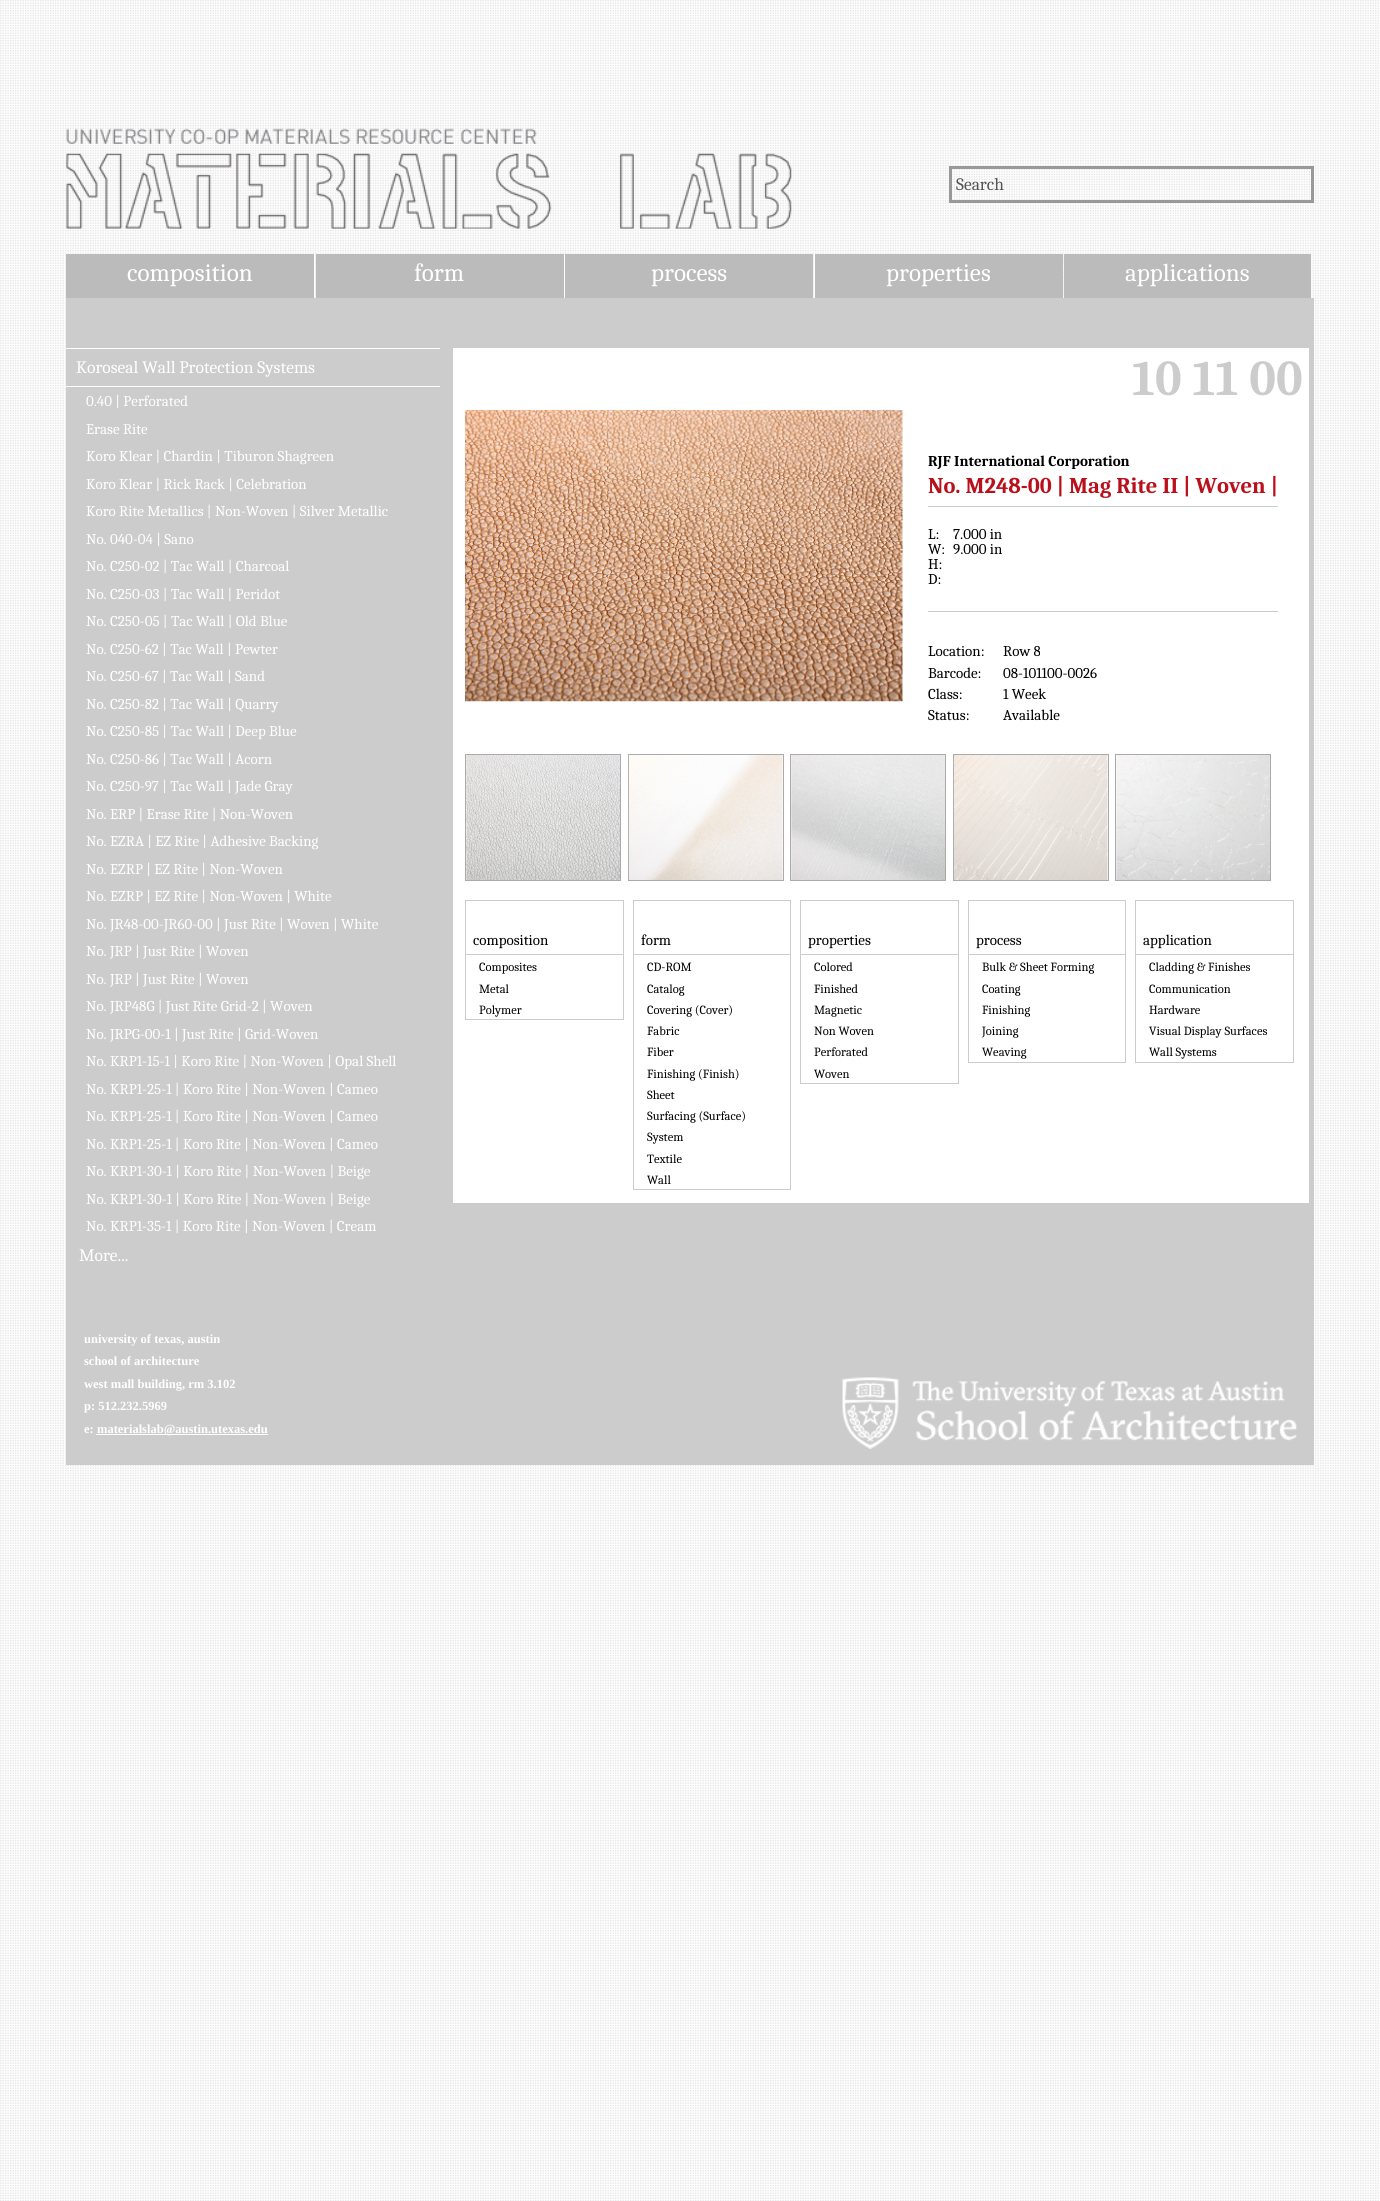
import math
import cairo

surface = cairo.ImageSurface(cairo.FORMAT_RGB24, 1380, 2201)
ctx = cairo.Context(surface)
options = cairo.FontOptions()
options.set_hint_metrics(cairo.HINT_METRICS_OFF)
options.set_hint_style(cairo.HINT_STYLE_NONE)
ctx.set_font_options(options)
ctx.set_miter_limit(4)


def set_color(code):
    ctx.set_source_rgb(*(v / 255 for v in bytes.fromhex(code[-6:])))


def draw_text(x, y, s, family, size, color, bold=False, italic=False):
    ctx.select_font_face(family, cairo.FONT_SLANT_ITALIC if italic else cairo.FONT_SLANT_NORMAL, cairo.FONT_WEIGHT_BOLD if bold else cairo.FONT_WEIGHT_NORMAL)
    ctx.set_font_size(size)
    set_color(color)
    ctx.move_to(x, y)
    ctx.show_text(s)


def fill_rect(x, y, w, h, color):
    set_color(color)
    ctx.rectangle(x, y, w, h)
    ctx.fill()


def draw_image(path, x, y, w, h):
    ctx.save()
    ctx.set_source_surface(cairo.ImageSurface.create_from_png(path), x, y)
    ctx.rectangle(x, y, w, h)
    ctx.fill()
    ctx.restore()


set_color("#ffffff")
ctx.paint()
draw_image("assets/img1.png", 0, 0, 1379, 2201)
draw_image("assets/img2.png", 66, 128, 726, 101)
draw_image("assets/img3.png", 948, 166, 363, 37)
ctx.rectangle(950.5, 167.5, 362, 34)
set_color("#999999")
ctx.set_line_width(3)
ctx.stroke()
draw_text(956, 190, "Search", "Caladea", 17.5, "#555555")
fill_rect(66, 254, 248, 44, "#bbbbbb")
draw_text(127, 281, "composition", "Caladea", 25, "#ffffff")
fill_rect(316, 254, 248, 44, "#bbbbbb")
draw_text(414, 281, "form", "Caladea", 25, "#ffffff")
fill_rect(565, 254, 248, 44, "#bbbbbb")
draw_text(651, 281, "process", "Caladea", 25, "#ffffff")
fill_rect(815, 254, 248, 44, "#bbbbbb")
draw_text(886, 281, "properties", "Caladea", 25, "#ffffff")
fill_rect(1064, 254, 247, 44, "#bbbbbb")
draw_text(1125, 281, "applications", "Caladea", 25, "#ffffff")
fill_rect(66, 298, 1248, 1167, "#cccccc")
fill_rect(66, 348, 374, 1, "#ffffff")
fill_rect(66, 386, 374, 1, "#ffffff")
draw_text(76, 373, "Koroseal Wall Protection Systems", "Caladea", 17.5, "#ffffff")
draw_text(86, 406, "0.40 | Perforated", "Caladea", 15, "#ffffff")
draw_text(86, 434, "Erase Rite", "Caladea", 15, "#ffffff")
draw_text(86, 461, "Koro Klear | Chardin | Tiburon Shagreen", "Caladea", 15, "#ffffff")
draw_text(86, 489, "Koro Klear | Rick Rack | Celebration", "Caladea", 15, "#ffffff")
draw_text(86, 516, "Koro Rite Metallics | Non-Woven | Silver Metallic", "Caladea", 15, "#ffffff")
draw_text(86, 544, "No. 040-04 | Sano", "Caladea", 15, "#ffffff")
draw_text(86, 571, "No. C250-02 | Tac Wall | Charcoal", "Caladea", 15, "#ffffff")
draw_text(86, 599, "No. C250-03 | Tac Wall | Peridot", "Caladea", 15, "#ffffff")
draw_text(86, 626, "No. C250-05 | Tac Wall | Old Blue", "Caladea", 15, "#ffffff")
draw_text(86, 654, "No. C250-62 | Tac Wall | Pewter", "Caladea", 15, "#ffffff")
draw_text(86, 681, "No. C250-67 | Tac Wall | Sand", "Caladea", 15, "#ffffff")
draw_text(86, 709, "No. C250-82 | Tac Wall | Quarry", "Caladea", 15, "#ffffff")
draw_text(86, 736, "No. C250-85 | Tac Wall | Deep Blue", "Caladea", 15, "#ffffff")
draw_text(86, 764, "No. C250-86 | Tac Wall | Acorn", "Caladea", 15, "#ffffff")
draw_text(86, 791, "No. C250-97 | Tac Wall | Jade Gray", "Caladea", 15, "#ffffff")
draw_text(86, 819, "No. ERP | Erase Rite | Non-Woven", "Caladea", 15, "#ffffff")
draw_text(86, 846, "No. EZRA | EZ Rite | Adhesive Backing", "Caladea", 15, "#ffffff")
draw_text(86, 874, "No. EZRP | EZ Rite | Non-Woven", "Caladea", 15, "#ffffff")
draw_text(86, 901, "No. EZRP | EZ Rite | Non-Woven | White", "Caladea", 15, "#ffffff")
draw_text(86, 929, "No. JR48-00-JR60-00 | Just Rite | Woven | White", "Caladea", 15, "#ffffff")
draw_text(86, 956, "No. JRP | Just Rite | Woven", "Caladea", 15, "#ffffff")
draw_text(86, 984, "No. JRP | Just Rite | Woven", "Caladea", 15, "#ffffff")
draw_text(86, 1011, "No. JRP48G | Just Rite Grid-2 | Woven", "Caladea", 15, "#ffffff")
draw_text(86, 1039, "No. JRPG-00-1 | Just Rite | Grid-Woven", "Caladea", 15, "#ffffff")
draw_text(86, 1066, "No. KRP1-15-1 | Koro Rite | Non-Woven | Opal Shell", "Caladea", 15, "#ffffff")
draw_text(86, 1094, "No. KRP1-25-1 | Koro Rite | Non-Woven | Cameo", "Caladea", 15, "#ffffff")
draw_text(86, 1121, "No. KRP1-25-1 | Koro Rite | Non-Woven | Cameo", "Caladea", 15, "#ffffff")
draw_text(86, 1149, "No. KRP1-25-1 | Koro Rite | Non-Woven | Cameo", "Caladea", 15, "#ffffff")
draw_text(86, 1176, "No. KRP1-30-1 | Koro Rite | Non-Woven | Beige", "Caladea", 15, "#ffffff")
draw_text(86, 1204, "No. KRP1-30-1 | Koro Rite | Non-Woven | Beige", "Caladea", 15, "#ffffff")
draw_text(86, 1231, "No. KRP1-35-1 | Koro Rite | Non-Woven | Cream", "Caladea", 15, "#ffffff")
draw_text(79, 1261, "More...", "Caladea", 17.5, "#ffffff")
fill_rect(453, 348, 856, 855, "#ffffff")
draw_text(1132, 395, "10 11 00", "Caladea", 50, "#cccccc", bold=True)
draw_image("assets/img4.png", 465, 410, 438, 292)
ctx.save()
ctx.rectangle(928, 448, 350, 21)
ctx.clip()
draw_text(928, 466, "RJF International Corporation", "Caladea", 15, "#000000", bold=True)
ctx.restore()
draw_text(928, 493, "No. M248-00 | Mag Rite II | Woven |", "Caladea", 22.5, "#ba101c", bold=True)
fill_rect(928, 506, 350, 1, "#cccccc")
draw_text(928, 539, "L:", "Caladea", 15, "#000000")
draw_text(953, 539, "7.000 in", "Caladea", 15, "#000000")
draw_text(928, 554, "W:", "Caladea", 15, "#000000")
draw_text(953, 554, "9.000 in", "Caladea", 15, "#000000")
draw_text(928, 569, "H:", "Caladea", 15, "#000000")
draw_text(928, 584, "D:", "Caladea", 15, "#000000")
fill_rect(928, 611, 350, 1, "#cccccc")
draw_text(928, 656, "Location:", "Caladea", 15, "#000000")
draw_text(928, 678, "Barcode:", "Caladea", 15, "#000000")
draw_text(928, 699, "Class:", "Caladea", 15, "#000000")
draw_text(928, 720, "Status:", "Caladea", 15, "#000000")
draw_text(1003, 656, "Row 8", "Caladea", 15, "#000000")
draw_text(1003, 678, "08-101100-0026", "Caladea", 15, "#000000")
draw_text(1003, 699, "1 Week", "Caladea", 15, "#000000")
draw_text(1003, 720, "Available", "Caladea", 15, "#000000")
ctx.rectangle(465.5, 754.5, 155, 126)
set_color("#aaaaaa")
ctx.set_line_width(1)
ctx.stroke()
ctx.rectangle(628.5, 754.5, 155, 126)
ctx.stroke()
ctx.rectangle(790.5, 754.5, 155, 126)
ctx.stroke()
ctx.rectangle(953.5, 754.5, 155, 126)
ctx.stroke()
ctx.rectangle(1115.5, 754.5, 155, 126)
ctx.stroke()
draw_image("assets/img5.png", 466, 755, 154, 125)
draw_image("assets/img6.png", 628, 755, 155, 125)
draw_image("assets/img7.png", 791, 755, 154, 125)
draw_image("assets/img8.png", 953, 755, 155, 125)
draw_image("assets/img9.png", 1116, 755, 154, 125)
ctx.rectangle(465.5, 900.5, 158, 119)
set_color("#cccccc")
ctx.stroke()
fill_rect(466, 954, 157, 1, "#cccccc")
draw_text(473, 945, "composition", "Caladea", 15, "#000000")
draw_text(479, 971, "Composites", "Caladea", 12.5, "#000000")
draw_text(479, 993, "Metal", "Caladea", 12.5, "#000000")
draw_text(479, 1014, "Polymer", "Caladea", 12.5, "#000000")
ctx.rectangle(633.5, 900.5, 157, 289)
set_color("#cccccc")
ctx.stroke()
fill_rect(634, 954, 156, 1, "#cccccc")
draw_text(641, 945, "form", "Caladea", 15, "#000000")
draw_text(647, 971, "CD-ROM", "Caladea", 12.5, "#000000")
draw_text(647, 993, "Catalog", "Caladea", 12.5, "#000000")
draw_text(647, 1014, "Covering (Cover)", "Caladea", 12.5, "#000000")
draw_text(647, 1035, "Fabric", "Caladea", 12.5, "#000000")
draw_text(647, 1056, "Fiber", "Caladea", 12.5, "#000000")
draw_text(647, 1078, "Finishing (Finish)", "Caladea", 12.5, "#000000")
draw_text(647, 1099, "Sheet", "Caladea", 12.5, "#000000")
draw_text(647, 1120, "Surfacing (Surface)", "Caladea", 12.5, "#000000")
draw_text(647, 1141, "System", "Caladea", 12.5, "#000000")
draw_text(647, 1163, "Textile", "Caladea", 12.5, "#000000")
draw_text(647, 1184, "Wall", "Caladea", 12.5, "#000000")
ctx.rectangle(800.5, 900.5, 158, 183)
set_color("#cccccc")
ctx.stroke()
fill_rect(801, 954, 157, 1, "#cccccc")
draw_text(808, 945, "properties", "Caladea", 15, "#000000")
draw_text(814, 971, "Colored", "Caladea", 12.5, "#000000")
draw_text(814, 993, "Finished", "Caladea", 12.5, "#000000")
draw_text(814, 1014, "Magnetic", "Caladea", 12.5, "#000000")
draw_text(814, 1035, "Non Woven", "Caladea", 12.5, "#000000")
draw_text(814, 1056, "Perforated", "Caladea", 12.5, "#000000")
draw_text(814, 1078, "Woven", "Caladea", 12.5, "#000000")
ctx.rectangle(968.5, 900.5, 157, 162)
set_color("#cccccc")
ctx.stroke()
fill_rect(969, 954, 156, 1, "#cccccc")
draw_text(976, 945, "process", "Caladea", 15, "#000000")
draw_text(982, 971, "Bulk & Sheet Forming", "Caladea", 12.5, "#000000")
draw_text(982, 993, "Coating", "Caladea", 12.5, "#000000")
draw_text(982, 1014, "Finishing", "Caladea", 12.5, "#000000")
draw_text(982, 1035, "Joining", "Caladea", 12.5, "#000000")
draw_text(982, 1056, "Weaving", "Caladea", 12.5, "#000000")
ctx.rectangle(1135.5, 900.5, 158, 162)
set_color("#cccccc")
ctx.stroke()
fill_rect(1136, 954, 157, 1, "#cccccc")
draw_text(1143, 945, "application", "Caladea", 15, "#000000")
draw_text(1149, 971, "Cladding & Finishes", "Caladea", 12.5, "#000000")
draw_text(1149, 993, "Communication", "Caladea", 12.5, "#000000")
draw_text(1149, 1014, "Hardware", "Caladea", 12.5, "#000000")
draw_text(1149, 1035, "Visual Display Surfaces", "Caladea", 12.5, "#000000")
draw_text(1149, 1056, "Wall Systems", "Caladea", 12.5, "#000000")
draw_text(84, 1343, "university of texas, austin", "Liberation Serif", 12.5, "#ffffff", bold=True)
draw_text(84, 1365, "school of architecture", "Liberation Serif", 12.5, "#ffffff", bold=True)
draw_text(84, 1388, "west mall building, rm 3.102", "Liberation Serif", 12.5, "#ffffff", bold=True)
draw_text(84, 1410, "p: 512.232.5969", "Liberation Serif", 12.5, "#ffffff", bold=True)
draw_text(84, 1433, "e:", "Liberation Serif", 12.5, "#ffffff", bold=True)
fill_rect(96, 1434, 172, 1, "#ffffff")
draw_text(97, 1433, "materialslab@austin.utexas.edu", "Liberation Serif", 12.5, "#ffffff", bold=True)
draw_image("assets/img10.png", 842, 1377, 455, 72)
surface.write_to_png("output.png")
